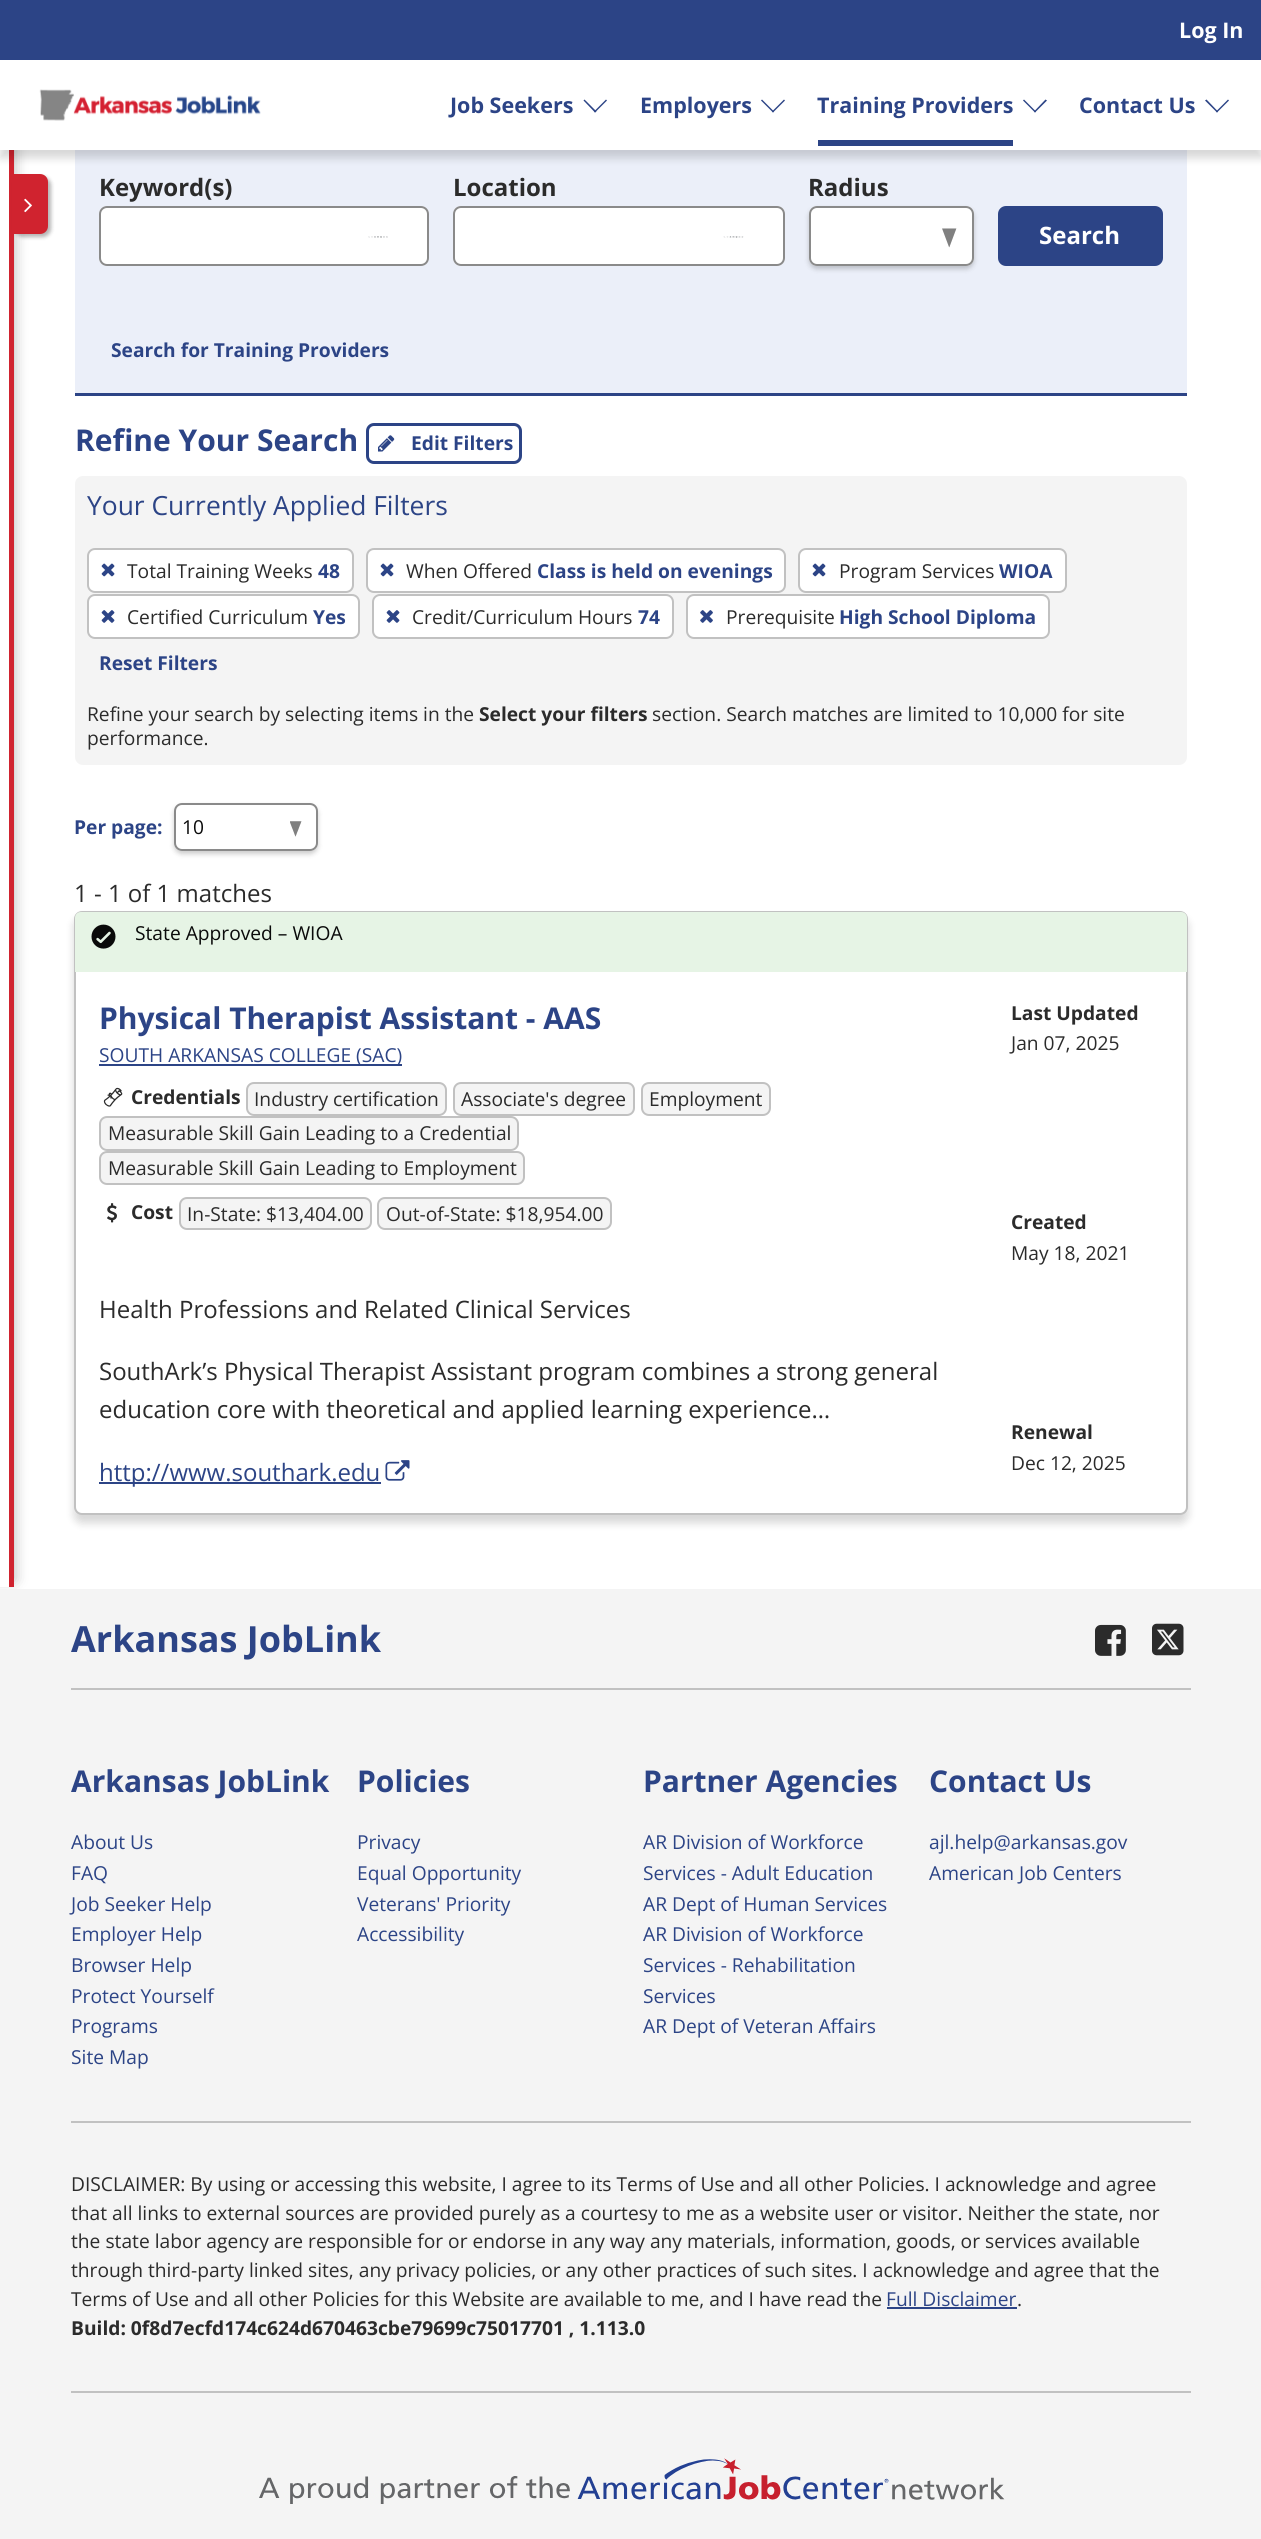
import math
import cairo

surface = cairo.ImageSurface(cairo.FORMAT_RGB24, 1261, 2539)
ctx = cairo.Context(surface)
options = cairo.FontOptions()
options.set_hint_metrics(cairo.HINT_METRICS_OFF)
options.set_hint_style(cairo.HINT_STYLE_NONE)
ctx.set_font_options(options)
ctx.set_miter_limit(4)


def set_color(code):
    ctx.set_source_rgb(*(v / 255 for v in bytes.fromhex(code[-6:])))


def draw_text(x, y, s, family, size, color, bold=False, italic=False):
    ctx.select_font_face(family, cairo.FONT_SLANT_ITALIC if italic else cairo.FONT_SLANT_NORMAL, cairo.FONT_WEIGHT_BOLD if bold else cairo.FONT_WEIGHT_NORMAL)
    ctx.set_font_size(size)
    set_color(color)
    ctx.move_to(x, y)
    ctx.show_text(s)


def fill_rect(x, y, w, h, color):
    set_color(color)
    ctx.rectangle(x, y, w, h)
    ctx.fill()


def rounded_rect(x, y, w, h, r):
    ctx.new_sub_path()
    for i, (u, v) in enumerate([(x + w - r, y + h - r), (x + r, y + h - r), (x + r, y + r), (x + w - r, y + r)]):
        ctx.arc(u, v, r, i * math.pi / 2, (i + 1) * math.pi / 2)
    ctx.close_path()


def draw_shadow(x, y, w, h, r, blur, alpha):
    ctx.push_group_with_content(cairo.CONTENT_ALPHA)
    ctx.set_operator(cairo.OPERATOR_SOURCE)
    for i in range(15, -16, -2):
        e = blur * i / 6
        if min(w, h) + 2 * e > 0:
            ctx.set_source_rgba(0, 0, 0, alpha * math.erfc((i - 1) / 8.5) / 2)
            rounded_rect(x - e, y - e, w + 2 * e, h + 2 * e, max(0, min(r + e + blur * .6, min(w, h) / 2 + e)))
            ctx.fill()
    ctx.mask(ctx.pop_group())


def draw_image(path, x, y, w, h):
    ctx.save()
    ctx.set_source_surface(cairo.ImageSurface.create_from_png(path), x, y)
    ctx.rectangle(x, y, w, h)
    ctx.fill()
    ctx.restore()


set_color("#ffffff")
ctx.paint()
set_color("#000000")
draw_shadow(-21, 6, 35, 1574, 0, 7, 0.3)
fill_rect(0, 150, 9, 1437, "#ffffff")
fill_rect(9, 150, 5, 1437, "#d0232f")
fill_rect(75, 150, 1112, 243, "#ebeff9")
set_color("#000000")
draw_shadow(0, 68, 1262, 90, 0, 4.5, 0.16)
fill_rect(0, 60, 1261, 90, "#ffffff")
draw_image("assets/img1.png", 39, 89, 222, 32)
fill_rect(0, 0, 1261, 60, "#2c4486")
draw_text(1179, 38, "Log In", "Open Sans", 21.5, "#ffffff", bold=True)
draw_text(450, 113, "Job Seekers", "Open Sans", 21.5, "#2c4486", bold=True)
ctx.new_path()
ctx.move_to(606, 99.5)
ctx.line_to(607, 100.5)
ctx.line_to(595, 112.5)
ctx.line_to(594, 111.5)
ctx.close_path()
ctx.fill()
ctx.new_path()
ctx.move_to(584.5, 99.5)
ctx.line_to(596.5, 111.5)
ctx.line_to(595, 112.5)
ctx.line_to(583.5, 100.5)
ctx.close_path()
ctx.fill()
draw_text(640, 113, "Employers", "Open Sans", 21.5, "#2c4486", bold=True)
ctx.new_path()
ctx.move_to(784, 99.5)
ctx.line_to(785, 100.5)
ctx.line_to(773, 112.5)
ctx.line_to(772, 111.5)
ctx.close_path()
ctx.fill()
ctx.new_path()
ctx.move_to(762, 99.5)
ctx.line_to(774, 111.5)
ctx.line_to(773, 112.5)
ctx.line_to(761, 100.5)
ctx.close_path()
ctx.fill()
draw_text(817, 113, "Training Providers", "Open Sans", 21.5, "#2c4486", bold=True)
fill_rect(818, 140, 195, 6, "#2c4486")
ctx.new_path()
ctx.move_to(1045.5, 99.5)
ctx.line_to(1047, 100.5)
ctx.line_to(1035, 112.5)
ctx.line_to(1034, 111.5)
ctx.close_path()
ctx.fill()
ctx.new_path()
ctx.move_to(1024, 99.5)
ctx.line_to(1036, 111.5)
ctx.line_to(1035, 112.5)
ctx.line_to(1023, 100.5)
ctx.close_path()
ctx.fill()
draw_text(1079, 113, "Contact Us", "Open Sans", 21.5, "#2c4486", bold=True)
ctx.new_path()
ctx.move_to(1228, 99.5)
ctx.line_to(1229, 100.5)
ctx.line_to(1217, 112.5)
ctx.line_to(1216, 111.5)
ctx.close_path()
ctx.fill()
ctx.new_path()
ctx.move_to(1206.5, 99.5)
ctx.line_to(1218, 111.5)
ctx.line_to(1217, 112.5)
ctx.line_to(1205, 100.5)
ctx.close_path()
ctx.fill()
set_color("#000000")
draw_shadow(15, 177, 36, 60, 8, 2, 0.3)
set_color("#d0232f")
ctx.new_path()
ctx.move_to(12, 174)
ctx.line_to(40, 174)
ctx.curve_to(44.5, 174, 48, 177.5, 48, 182)
ctx.line_to(48, 226)
ctx.curve_to(48, 230.5, 44.5, 234, 40, 234)
ctx.line_to(12, 234)
ctx.close_path()
ctx.fill()
draw_image("assets/img2.png", 24, 198, 8, 15)
fill_rect(75, 393, 1112, 3, "#2c4486")
draw_text(99, 196, "Keyword(s)", "Open Sans", 24, "#2b2b2b", bold=True)
set_color("#ffffff")
rounded_rect(99, 206, 330, 60, 8)
ctx.fill()
draw_image("assets/img3.png", 368, 236, 20, 2)
rounded_rect(100, 207, 328, 58, 7)
set_color("#8a8a8a")
ctx.stroke()
draw_text(453, 196, "Location", "Open Sans", 24, "#2b2b2b", bold=True)
set_color("#ffffff")
rounded_rect(453, 206, 332, 60, 8)
ctx.fill()
draw_image("assets/img4.png", 723, 236, 21, 2)
rounded_rect(454, 207, 330, 58, 7)
set_color("#8a8a8a")
ctx.stroke()
draw_text(808, 196, "Radius", "Open Sans", 24, "#2b2b2b", bold=True)
set_color("#000000")
draw_shadow(809, 209, 165, 60, 8, 2.5, 0.2)
set_color("#ffffff")
rounded_rect(809, 206, 165, 60, 8)
ctx.fill()
draw_image("assets/img5.png", 942, 228, 15, 20)
rounded_rect(810, 207, 163, 58, 7)
set_color("#8a8a8a")
ctx.stroke()
set_color("#2c4486")
rounded_rect(999.5, 207.5, 162, 57, 6.5)
ctx.fill_preserve()
ctx.set_line_width(3)
ctx.stroke()
draw_text(1039, 244, "Search", "Open Sans", 24, "#ffffff", bold=True)
draw_text(111, 357, "Search for Training Providers", "Open Sans", 19.2, "#2c4486", bold=True)
draw_text(75, 451, "Refine Your Search", "Open Sans", 30, "#2c4486", bold=True)
rounded_rect(367.5, 424.5, 153, 38, 6.5)
ctx.stroke()
draw_image("assets/img6.png", 378, 435, 17, 17)
draw_text(411, 450, "Edit Filters", "Open Sans", 19.2, "#2c4486", bold=True)
set_color("#f4f4f4")
rounded_rect(75, 476, 1112, 289, 8)
ctx.fill()
draw_text(87, 515, "Your Currently Applied Filters", "Open Sans", 26.4, "#2c4486")
set_color("#ffffff")
rounded_rect(88, 549, 265, 43, 7)
ctx.fill_preserve()
set_color("#c1c1c1")
ctx.set_line_width(2)
ctx.stroke()
draw_image("assets/img7.png", 101, 563, 14, 14)
draw_text(127, 578, "Total Training Weeks", "Open Sans", 19.2, "#2b2b2b")
draw_text(318, 578, "48", "Open Sans", 19.2, "#2c4486", bold=True)
set_color("#ffffff")
rounded_rect(367, 549, 418, 43, 7)
ctx.fill_preserve()
set_color("#c1c1c1")
ctx.stroke()
draw_image("assets/img7.png", 380, 563, 14, 14)
draw_text(406, 578, "When Offered", "Open Sans", 19.2, "#2b2b2b")
draw_text(537, 578, "Class is held on evenings", "Open Sans", 19.2, "#2c4486", bold=True)
set_color("#ffffff")
rounded_rect(799, 549, 267, 43, 7)
ctx.fill_preserve()
set_color("#c1c1c1")
ctx.stroke()
draw_image("assets/img7.png", 812, 563, 14, 14)
draw_text(839, 578, "Program Services", "Open Sans", 19.2, "#2b2b2b")
draw_text(999, 578, "WIOA", "Open Sans", 19.2, "#2c4486", bold=True)
set_color("#ffffff")
rounded_rect(88, 595, 271, 43, 7)
ctx.fill_preserve()
set_color("#c1c1c1")
ctx.stroke()
draw_image("assets/img8.png", 101, 610, 14, 13)
draw_text(127, 624, "Certified Curriculum", "Open Sans", 19.2, "#2b2b2b")
draw_text(313, 624, "Yes", "Open Sans", 19.2, "#2c4486", bold=True)
set_color("#ffffff")
rounded_rect(373, 595, 300, 43, 7)
ctx.fill_preserve()
set_color("#c1c1c1")
ctx.stroke()
draw_image("assets/img8.png", 386, 610, 14, 13)
draw_text(412, 624, "Credit/Curriculum Hours", "Open Sans", 19.2, "#2b2b2b")
draw_text(638, 624, "74", "Open Sans", 19.2, "#2c4486", bold=True)
set_color("#ffffff")
rounded_rect(687, 595, 362, 43, 7)
ctx.fill_preserve()
set_color("#c1c1c1")
ctx.stroke()
draw_image("assets/img9.png", 700, 610, 13, 13)
draw_text(726, 624, "Prerequisite", "Open Sans", 19.2, "#2b2b2b")
draw_text(839, 624, "High School Diploma", "Open Sans", 19.2, "#2c4486", bold=True)
draw_text(99, 670, "Reset Filters", "Open Sans", 19.2, "#2c4486", bold=True)
draw_text(87, 721, "Refine your search by selecting items in the", "Open Sans", 19.2, "#2b2b2b")
draw_text(479, 721, "Select your filters", "Open Sans", 19.2, "#2b2b2b", bold=True)
draw_text(652, 721, "section. Search matches are limited to 10,000 for site", "Open Sans", 19.2, "#2b2b2b")
draw_text(87, 745, "performance.", "Open Sans", 19.2, "#2b2b2b")
draw_text(74, 834, "Per page:", "Open Sans", 19.2, "#2c4486", bold=True)
set_color("#000000")
draw_shadow(174, 806, 144, 48, 8, 2.5, 0.2)
set_color("#ffffff")
rounded_rect(174, 803, 144, 48, 8)
ctx.fill()
draw_image("assets/img10.png", 290, 821, 12, 16)
rounded_rect(175, 804, 142, 46, 7)
set_color("#8a8a8a")
ctx.stroke()
draw_text(182, 834, "10", "Open Sans", 19.2, "#0a0a0a")
draw_text(74, 902, "1 - 1 of 1 matches", "Open Sans", 24, "#2b2b2b")
set_color("#000000")
draw_shadow(74, 918, 1114, 605, 8, 4.5, 0.16)
set_color("#ffffff")
rounded_rect(75, 912, 1112, 602, 7)
ctx.fill_preserve()
set_color("#c1c1c1")
ctx.stroke()
set_color("#e6f4e5")
ctx.new_path()
ctx.move_to(81, 912)
ctx.line_to(1181, 912)
ctx.curve_to(1184.5, 912, 1187, 914.5, 1187, 918)
ctx.line_to(1187, 972)
ctx.line_to(75, 972)
ctx.line_to(75, 918)
ctx.curve_to(75, 914.5, 77.5, 912, 81, 912)
ctx.close_path()
ctx.fill()
draw_image("assets/img11.png", 91, 924, 25, 25)
draw_text(135, 940, "State Approved – WIOA", "Open Sans", 19.2, "#0a0a0a")
draw_text(99, 1029, "Physical Therapist Assistant - AAS", "Open Sans", 30, "#2c4486", bold=True)
fill_rect(99, 1064, 303, 2, "#2c4486")
draw_text(99, 1062, "SOUTH ARKANSAS COLLEGE (SAC)", "Open Sans", 19.2, "#2c4486")
draw_image("assets/img12.png", 103, 1087, 20, 20)
draw_text(131, 1104, "Credentials", "Open Sans", 19.2, "#2b2b2b", bold=True)
set_color("#f4f4f4")
rounded_rect(247, 1083, 199, 32, 7)
ctx.fill_preserve()
set_color("#c1c1c1")
ctx.stroke()
draw_text(254, 1106, "Industry certification", "Open Sans", 19.2, "#2b2b2b")
set_color("#f4f4f4")
rounded_rect(454, 1083, 180, 32, 7)
ctx.fill_preserve()
set_color("#c1c1c1")
ctx.stroke()
draw_text(461, 1106, "Associate's degree", "Open Sans", 19.2, "#2b2b2b")
set_color("#f4f4f4")
rounded_rect(642, 1083, 128, 32, 7)
ctx.fill_preserve()
set_color("#c1c1c1")
ctx.stroke()
draw_text(649, 1106, "Employment", "Open Sans", 19.2, "#2b2b2b")
set_color("#f4f4f4")
rounded_rect(100, 1117, 418, 33, 7)
ctx.fill_preserve()
set_color("#c1c1c1")
ctx.stroke()
draw_text(108, 1140, "Measurable Skill Gain Leading to a Credential", "Open Sans", 19.2, "#2b2b2b")
set_color("#f4f4f4")
rounded_rect(100, 1152, 424, 32, 7)
ctx.fill_preserve()
set_color("#c1c1c1")
ctx.stroke()
draw_text(108, 1175, "Measurable Skill Gain Leading to Employment", "Open Sans", 19.2, "#2b2b2b")
draw_image("assets/img13.png", 107, 1203, 10, 20)
draw_text(131, 1219, "Cost", "Open Sans", 19.2, "#2b2b2b", bold=True)
set_color("#f4f4f4")
rounded_rect(180, 1198, 191, 31, 7)
ctx.fill_preserve()
set_color("#c1c1c1")
ctx.stroke()
draw_text(187, 1221, "In-State: $13,404.00", "Open Sans", 19.2, "#2b2b2b")
set_color("#f4f4f4")
rounded_rect(378, 1198, 233, 31, 7)
ctx.fill_preserve()
set_color("#c1c1c1")
ctx.stroke()
draw_text(386, 1221, "Out-of-State: $18,954.00", "Open Sans", 19.2, "#2b2b2b")
draw_text(1011, 1020, "Last Updated", "Open Sans", 19.2, "#2b2b2b", bold=True)
draw_text(1011, 1050, "Jan 07, 2025", "Open Sans", 19.2, "#2b2b2b")
draw_text(1011, 1229, "Created", "Open Sans", 19.2, "#2b2b2b", bold=True)
draw_text(1011, 1260, "May 18, 2021", "Open Sans", 19.2, "#2b2b2b")
draw_text(1011, 1439, "Renewal", "Open Sans", 19.2, "#2b2b2b", bold=True)
draw_text(1011, 1470, "Dec 12, 2025", "Open Sans", 19.2, "#2b2b2b")
draw_text(99, 1318, "Health Professions and Related Clinical Services", "Open Sans", 24, "#2b2b2b")
draw_text(99, 1380, "SouthArk’s Physical Therapist Assistant program combines a strong general", "Open Sans", 24, "#2b2b2b")
draw_text(99, 1418, "education core with theoretical and applied learning experience…", "Open Sans", 24, "#2b2b2b")
fill_rect(99, 1482, 282, 2, "#2c4486")
draw_text(99, 1481, "http://www.southark.edu", "Open Sans", 24, "#2c4486")
draw_image("assets/img14.png", 385, 1460, 25, 21)
fill_rect(0, 1589, 1261, 950, "#f4f4f4")
draw_text(71, 1652, "Arkansas JobLink", "Open Sans", 36, "#2c4486", bold=True)
draw_image("assets/img15.png", 1095, 1624, 31, 32)
draw_image("assets/img16.png", 1152, 1623, 32, 33)
fill_rect(71, 1688, 1120, 2, "#c1c1c1")
draw_text(71, 1792, "Arkansas JobLink", "Open Sans", 30, "#2c4486", bold=True)
draw_text(71, 1849, "About Us", "Open Sans", 19.2, "#2c4486")
draw_text(71, 1880, "FAQ", "Open Sans", 19.2, "#2c4486")
draw_text(71, 1911, "Job Seeker Help", "Open Sans", 19.2, "#2c4486")
draw_text(71, 1941, "Employer Help", "Open Sans", 19.2, "#2c4486")
draw_text(71, 1972, "Browser Help", "Open Sans", 19.2, "#2c4486")
draw_text(71, 2003, "Protect Yourself", "Open Sans", 19.2, "#2c4486")
draw_text(71, 2033, "Programs", "Open Sans", 19.2, "#2c4486")
draw_text(71, 2064, "Site Map", "Open Sans", 19.2, "#2c4486")
draw_text(357, 1792, "Policies", "Open Sans", 30, "#2c4486", bold=True)
draw_text(357, 1849, "Privacy", "Open Sans", 19.2, "#2c4486")
draw_text(357, 1880, "Equal Opportunity", "Open Sans", 19.2, "#2c4486")
draw_text(357, 1911, "Veterans' Priority", "Open Sans", 19.2, "#2c4486")
draw_text(357, 1941, "Accessibility", "Open Sans", 19.2, "#2c4486")
draw_text(643, 1792, "Partner Agencies", "Open Sans", 30, "#2c4486", bold=True)
draw_text(643, 1849, "AR Division of Workforce", "Open Sans", 19.2, "#2c4486")
draw_text(643, 1880, "Services - Adult Education", "Open Sans", 19.2, "#2c4486")
draw_text(643, 1911, "AR Dept of Human Services", "Open Sans", 19.2, "#2c4486")
draw_text(643, 1941, "AR Division of Workforce", "Open Sans", 19.2, "#2c4486")
draw_text(643, 1972, "Services - Rehabilitation", "Open Sans", 19.2, "#2c4486")
draw_text(643, 2003, "Services", "Open Sans", 19.2, "#2c4486")
draw_text(643, 2033, "AR Dept of Veteran Affairs", "Open Sans", 19.2, "#2c4486")
draw_text(929, 1792, "Contact Us", "Open Sans", 30, "#2c4486", bold=True)
draw_text(929, 1849, "ajl.help@arkansas.gov", "Open Sans", 19.2, "#2c4486")
draw_text(929, 1880, "American Job Centers", "Open Sans", 19.2, "#2c4486")
fill_rect(71, 2121, 1120, 2, "#c1c1c1")
draw_text(71, 2191, "DISCLAIMER: By using or accessing this website, I agree to its Terms of Use and all other Policies. I acknowledge and agree", "Open Sans", 19.2, "#2b2b2b")
draw_text(71, 2220, "that all links to external sources are provided purely as a courtesy to me as a website user or visitor. Neither the state, nor", "Open Sans", 19.2, "#2b2b2b")
draw_text(71, 2248, "the state labor agency are responsible for or endorse in any way any materials, information, goods, or services available", "Open Sans", 19.2, "#2b2b2b")
draw_text(71, 2277, "through third-party linked sites, any privacy policies, or any other practices of such sites. I acknowledge and agree that the", "Open Sans", 19.2, "#2b2b2b")
draw_text(71, 2306, "Terms of Use and all other Policies for this Website are available to me, and I have read the", "Open Sans", 19.2, "#2b2b2b")
draw_text(886, 2306, "Full Disclaimer", "Open Sans", 19.2, "#2c4486")
fill_rect(887, 2307, 130, 2, "#2c4486")
draw_text(1017, 2306, ".", "Open Sans", 19.2, "#2b2b2b")
draw_text(71, 2335, "Build: 0f8d7ecfd174c624d670463cbe79699c75017701 , 1.113.0", "Open Sans", 19.2, "#2b2b2b", bold=True)
fill_rect(71, 2391, 1120, 2, "#c1c1c1")
draw_image("assets/img17.png", 259, 2458, 746, 46)
surface.write_to_png("output.png")
